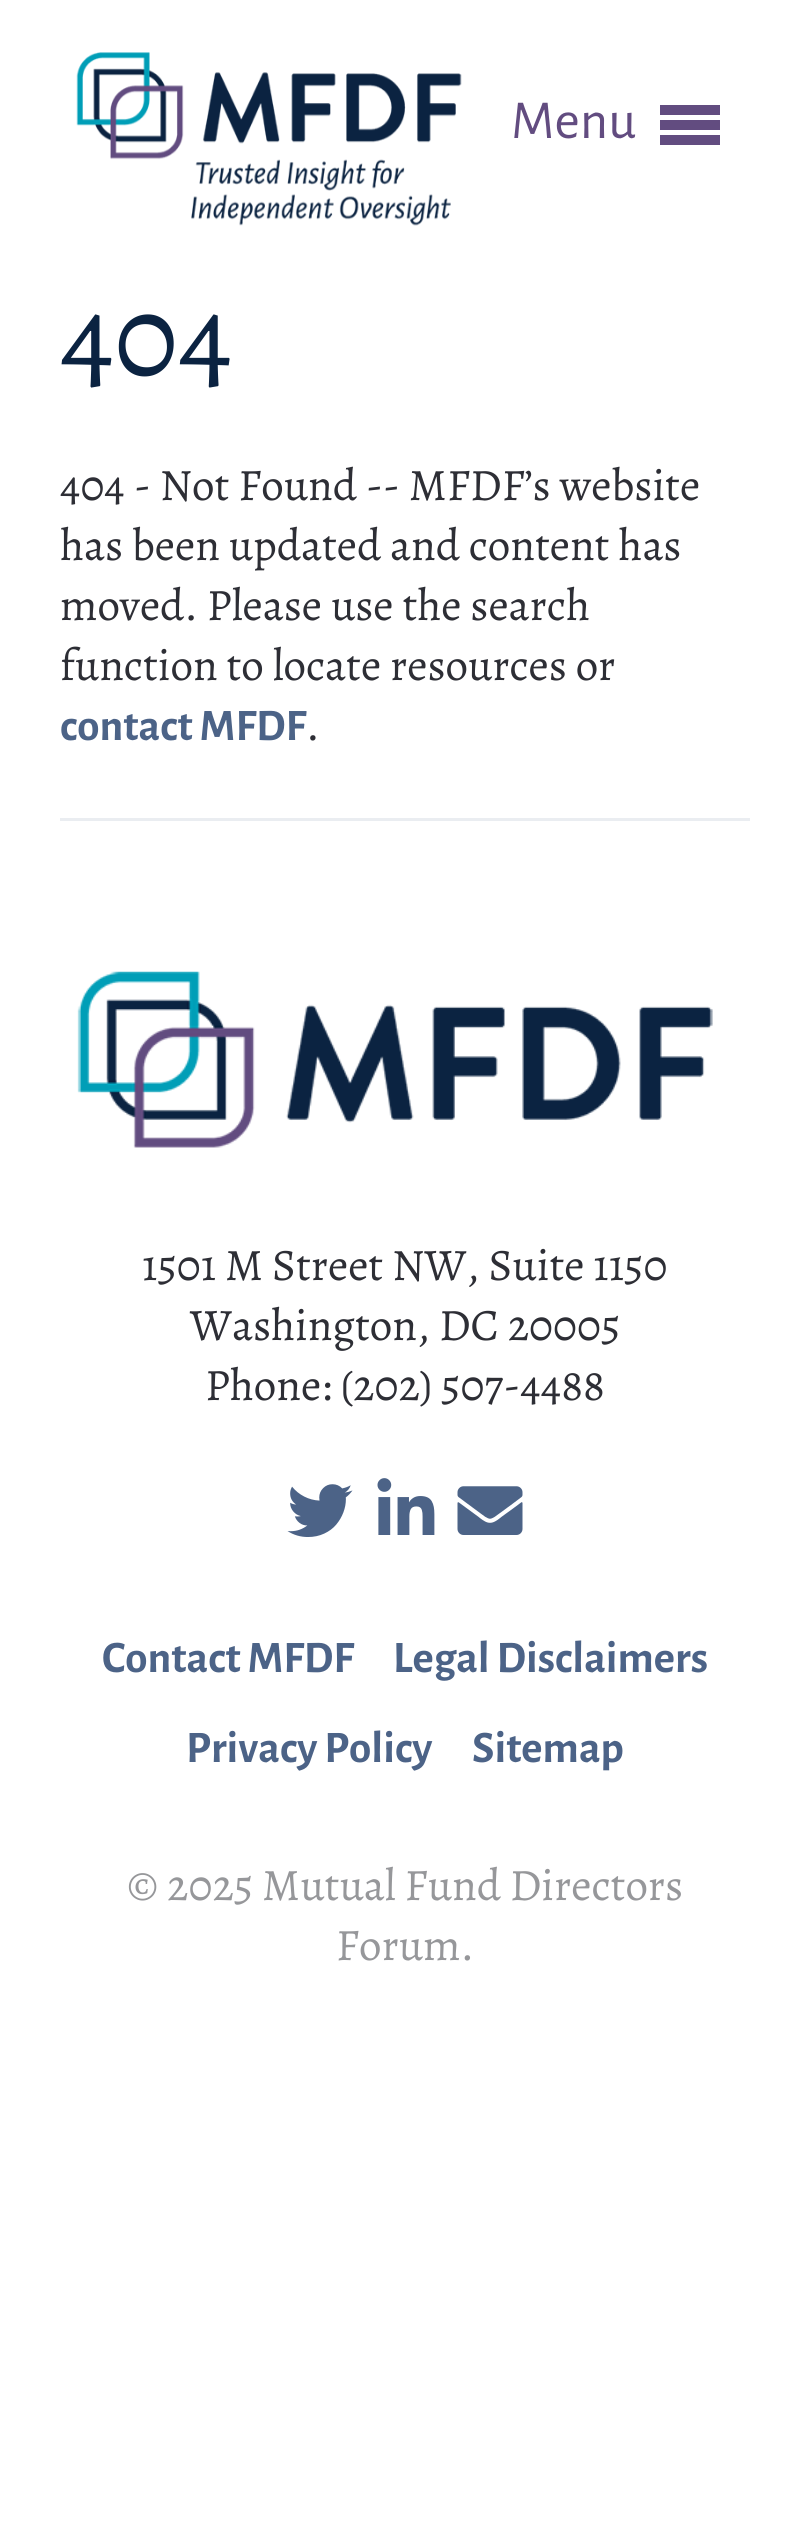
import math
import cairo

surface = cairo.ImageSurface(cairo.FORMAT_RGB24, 808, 2544)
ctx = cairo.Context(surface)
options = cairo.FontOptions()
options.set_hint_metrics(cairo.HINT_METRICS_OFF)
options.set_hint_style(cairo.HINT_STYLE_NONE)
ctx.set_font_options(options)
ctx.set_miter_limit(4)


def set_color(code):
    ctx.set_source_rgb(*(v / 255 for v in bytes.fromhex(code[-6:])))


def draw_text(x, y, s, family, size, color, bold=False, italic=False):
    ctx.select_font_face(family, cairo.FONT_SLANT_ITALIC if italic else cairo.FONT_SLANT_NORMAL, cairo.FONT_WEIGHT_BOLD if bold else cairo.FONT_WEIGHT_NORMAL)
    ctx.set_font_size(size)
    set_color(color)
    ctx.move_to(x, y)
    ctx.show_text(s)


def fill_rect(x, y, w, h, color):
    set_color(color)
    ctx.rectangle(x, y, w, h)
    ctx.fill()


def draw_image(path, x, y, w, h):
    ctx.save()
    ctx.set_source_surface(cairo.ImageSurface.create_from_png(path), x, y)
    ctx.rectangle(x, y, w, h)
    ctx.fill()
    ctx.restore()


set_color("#ffffff")
ctx.paint()
draw_image("assets/img1.png", 76, 52, 386, 174)
draw_text(511, 138, "Menu", "Alegreya Sans", 55, "#624c80")
fill_rect(660, 105, 60, 10, "#624c80")
fill_rect(660, 120, 60, 10, "#624c80")
fill_rect(660, 135, 60, 10, "#624c80")
draw_text(60, 375, "404", "Alegreya", 120, "#0b2341")
draw_text(60, 500, "404 - Not Found -- MFDF’s website", "Alegreya", 45, "#2d2e35")
draw_text(60, 560, "has been updated and content has", "Alegreya", 45, "#2d2e35")
draw_text(60, 620, "moved. Please use the search", "Alegreya", 45, "#2d2e35")
draw_text(60, 680, "function to locate resources or", "Alegreya", 45, "#2d2e35")
draw_text(60, 740, "contact MFDF", "Alegreya Sans", 45, "#4c6387", bold=True)
draw_text(306, 740, ".", "Alegreya", 45, "#2d2e35")
fill_rect(60, 818, 690, 3, "#eaedf1")
draw_image("assets/img2.png", 77, 971, 636, 177)
draw_text(142, 1280, "1501 M Street NW, Suite 1150", "Alegreya", 45, "#2d2e35")
draw_text(190, 1340, "Washington, DC 20005", "Alegreya", 45, "#2d2e35")
draw_text(205, 1400, "Phone: (202) 507-4488", "Alegreya", 45, "#2d2e35")
draw_image("assets/img3.png", 287, 1484, 66, 53)
draw_image("assets/img4.png", 377, 1478, 58, 57)
draw_image("assets/img5.png", 457, 1486, 66, 49)
draw_text(102, 1672, "Contact MFDF", "Alegreya Sans", 45, "#4c6387", bold=True)
draw_text(393, 1672, "Legal Disclaimers", "Alegreya Sans", 45, "#4c6387", bold=True)
draw_text(186, 1762, "Privacy Policy", "Alegreya Sans", 45, "#4c6387", bold=True)
draw_text(472, 1762, "Sitemap", "Alegreya Sans", 45, "#4c6387", bold=True)
draw_text(127, 1900, "© 2025 Mutual Fund Directors", "Alegreya", 45, "#96979a")
draw_text(336, 1960, "Forum.", "Alegreya", 45, "#96979a")
surface.write_to_png("output.png")
